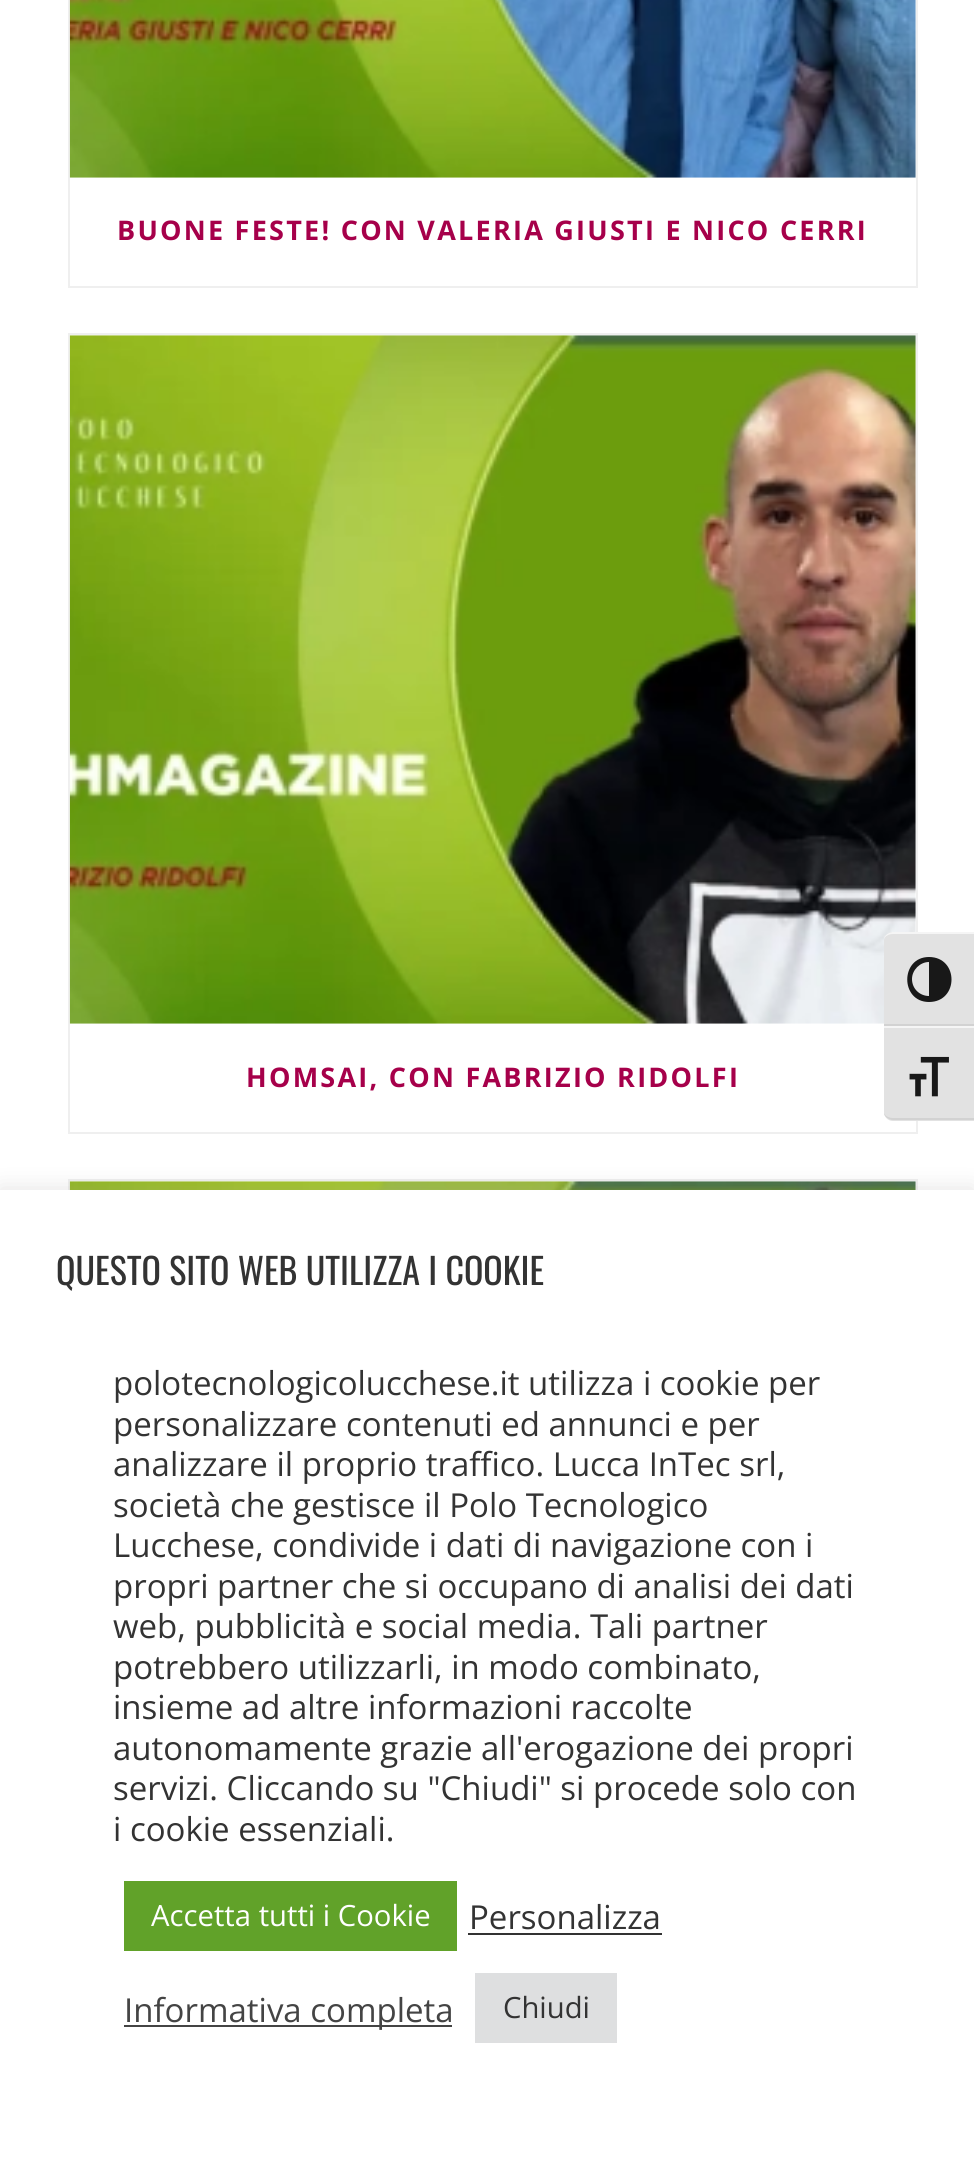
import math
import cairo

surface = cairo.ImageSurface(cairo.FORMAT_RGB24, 974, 2166)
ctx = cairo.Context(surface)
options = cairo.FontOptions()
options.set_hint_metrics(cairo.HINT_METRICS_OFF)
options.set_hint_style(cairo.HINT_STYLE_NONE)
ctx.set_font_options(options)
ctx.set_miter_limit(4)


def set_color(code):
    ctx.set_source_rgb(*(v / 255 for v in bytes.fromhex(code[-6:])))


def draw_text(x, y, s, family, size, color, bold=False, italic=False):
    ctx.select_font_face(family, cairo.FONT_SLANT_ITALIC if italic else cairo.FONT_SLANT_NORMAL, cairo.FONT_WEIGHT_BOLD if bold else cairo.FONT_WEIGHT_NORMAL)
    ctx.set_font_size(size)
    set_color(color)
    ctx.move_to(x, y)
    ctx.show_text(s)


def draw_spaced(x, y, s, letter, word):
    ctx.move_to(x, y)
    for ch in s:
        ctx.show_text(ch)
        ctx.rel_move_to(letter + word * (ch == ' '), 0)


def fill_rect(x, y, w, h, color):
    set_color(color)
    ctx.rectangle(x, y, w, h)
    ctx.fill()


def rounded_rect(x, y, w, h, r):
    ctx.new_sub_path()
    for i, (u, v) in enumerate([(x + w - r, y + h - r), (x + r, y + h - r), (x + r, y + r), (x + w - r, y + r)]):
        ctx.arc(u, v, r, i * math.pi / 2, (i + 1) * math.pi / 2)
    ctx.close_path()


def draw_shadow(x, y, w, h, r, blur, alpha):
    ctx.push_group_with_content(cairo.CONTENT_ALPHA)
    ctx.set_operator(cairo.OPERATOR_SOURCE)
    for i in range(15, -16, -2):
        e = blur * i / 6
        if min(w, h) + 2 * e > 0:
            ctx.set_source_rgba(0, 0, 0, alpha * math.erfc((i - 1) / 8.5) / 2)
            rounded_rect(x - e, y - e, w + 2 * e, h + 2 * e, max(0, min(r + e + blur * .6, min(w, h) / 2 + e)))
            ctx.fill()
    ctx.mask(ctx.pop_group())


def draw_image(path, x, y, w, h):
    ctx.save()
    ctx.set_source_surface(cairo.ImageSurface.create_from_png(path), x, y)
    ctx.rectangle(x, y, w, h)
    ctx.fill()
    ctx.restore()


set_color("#ffffff")
ctx.paint()
ctx.rectangle(69, -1, 848, 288)
set_color("#efefef")
ctx.stroke()
draw_image("assets/img1.png", 69, 0, 847, 178)
ctx.select_font_face("Open Sans", cairo.FONT_SLANT_NORMAL, cairo.FONT_WEIGHT_BOLD)
ctx.set_font_size(27)
set_color("#a6004a")
draw_spaced(117, 240, "BUONE FESTE! CON VALERIA GIUSTI E NICO CERRI", 2.25, 0)
ctx.rectangle(69, 334, 848, 799)
set_color("#efefef")
ctx.stroke()
draw_image("assets/img2.png", 69, 335, 847, 689)
set_color("#a6004a")
draw_spaced(246, 1087, "HOMSAI, CON FABRIZIO RIDOLFI", 2.25, 0)
ctx.rectangle(69, 1180, 848, 799)
set_color("#efefef")
ctx.stroke()
draw_image("assets/img3.png", 69, 1181, 847, 9)
set_color("#e2e2e2")
ctx.new_path()
ctx.move_to(893, 932)
ctx.line_to(974, 932)
ctx.line_to(974, 1026)
ctx.line_to(884, 1026)
ctx.line_to(884, 941)
ctx.curve_to(884, 936, 888, 932, 893, 932)
ctx.close_path()
ctx.fill()
set_color("#f5f5f5")
ctx.new_path()
ctx.move_to(893, 932)
ctx.line_to(974, 932)
ctx.line_to(974, 934)
ctx.line_to(893, 934)
ctx.curve_to(889, 934, 885, 936, 884, 939)
ctx.curve_to(884, 935, 890, 932, 893, 932)
ctx.close_path()
ctx.fill()
fill_rect(884, 1024, 90, 2, "#d2d2d2")
set_color("#181818")
ctx.new_path()
ctx.move_to(929, 957)
ctx.curve_to(900, 957, 900, 1002, 929, 1002)
ctx.curve_to(959, 1002, 959, 957, 929, 957)
ctx.close_path()
ctx.move_to(912, 979)
ctx.curve_to(912, 970, 920, 962, 929, 962)
ctx.line_to(929, 996)
ctx.curve_to(920, 996, 912, 989, 912, 979)
ctx.close_path()
ctx.fill()
set_color("#e2e2e2")
ctx.new_path()
ctx.move_to(884, 1026)
ctx.line_to(974, 1026)
ctx.line_to(974, 1121)
ctx.line_to(893, 1121)
ctx.curve_to(888, 1121, 884, 1117, 884, 1112)
ctx.close_path()
ctx.fill()
fill_rect(884, 1026, 90, 2, "#f5f5f5")
set_color("#d2d2d2")
ctx.new_path()
ctx.move_to(974, 1120)
ctx.line_to(974, 1118)
ctx.line_to(893, 1118)
ctx.curve_to(889, 1118, 885, 1116, 884, 1113)
ctx.line_to(884, 1114)
ctx.curve_to(885, 1117, 889, 1120, 893, 1120)
ctx.close_path()
ctx.fill()
draw_image("assets/img4.png", 909, 1056, 40, 41)
set_color("#acabab")
draw_shadow(0, 1188, 974, 977, 0, 11, 0.3)
fill_rect(0, 1190, 974, 976, "#ffffff")
draw_text(56, 1285, "QUESTO SITO WEB UTILIZZA I COOKIE", "Oswald", 36, "#333333")
draw_text(113, 1395, "polotecnologicolucchese.it utilizza i cookie per", "Open Sans", 33, "#333333")
draw_text(113, 1436, "personalizzare contenuti ed annunci e per", "Open Sans", 33, "#333333")
draw_text(113, 1476, "analizzare il proprio traffico. Lucca InTec srl,", "Open Sans", 33, "#333333")
draw_text(113, 1517, "società che gestisce il Polo Tecnologico", "Open Sans", 33, "#333333")
draw_text(113, 1557, "Lucchese, condivide i dati di navigazione con i", "Open Sans", 33, "#333333")
draw_text(113, 1598, "propri partner che si occupano di analisi dei dati", "Open Sans", 33, "#333333")
draw_text(113, 1638, "web, pubblicità e social media. Tali partner", "Open Sans", 33, "#333333")
draw_text(113, 1679, "potrebbero utilizzarli, in modo combinato,", "Open Sans", 33, "#333333")
draw_text(113, 1719, "insieme ad altre informazioni raccolte", "Open Sans", 33, "#333333")
draw_text(113, 1760, "autonomamente grazie all'erogazione dei propri", "Open Sans", 33, "#333333")
draw_text(113, 1800, "servizi. Cliccando su \"Chiudi\" si procede solo con", "Open Sans", 33, "#333333")
draw_text(113, 1841, "i cookie essenziali.", "Open Sans", 33, "#333333")
fill_rect(124, 1881, 333, 70, "#61a229")
draw_text(151, 1926, "Accetta tutti i Cookie", "Open Sans", 29.25, "#ffffff")
draw_text(469, 1929, "Personalizza", "Open Sans", 33, "#333333")
fill_rect(468, 1933, 194, 2, "#333333")
fill_rect(124, 2025, 328, 2, "#444444")
draw_text(124, 2022, "Informativa completa", "Open Sans", 33, "#444444")
fill_rect(475, 1973, 142, 70, "#dedfe0")
draw_text(503, 2018, "Chiudi", "Open Sans", 29.25, "#333333")
surface.write_to_png("output.png")
